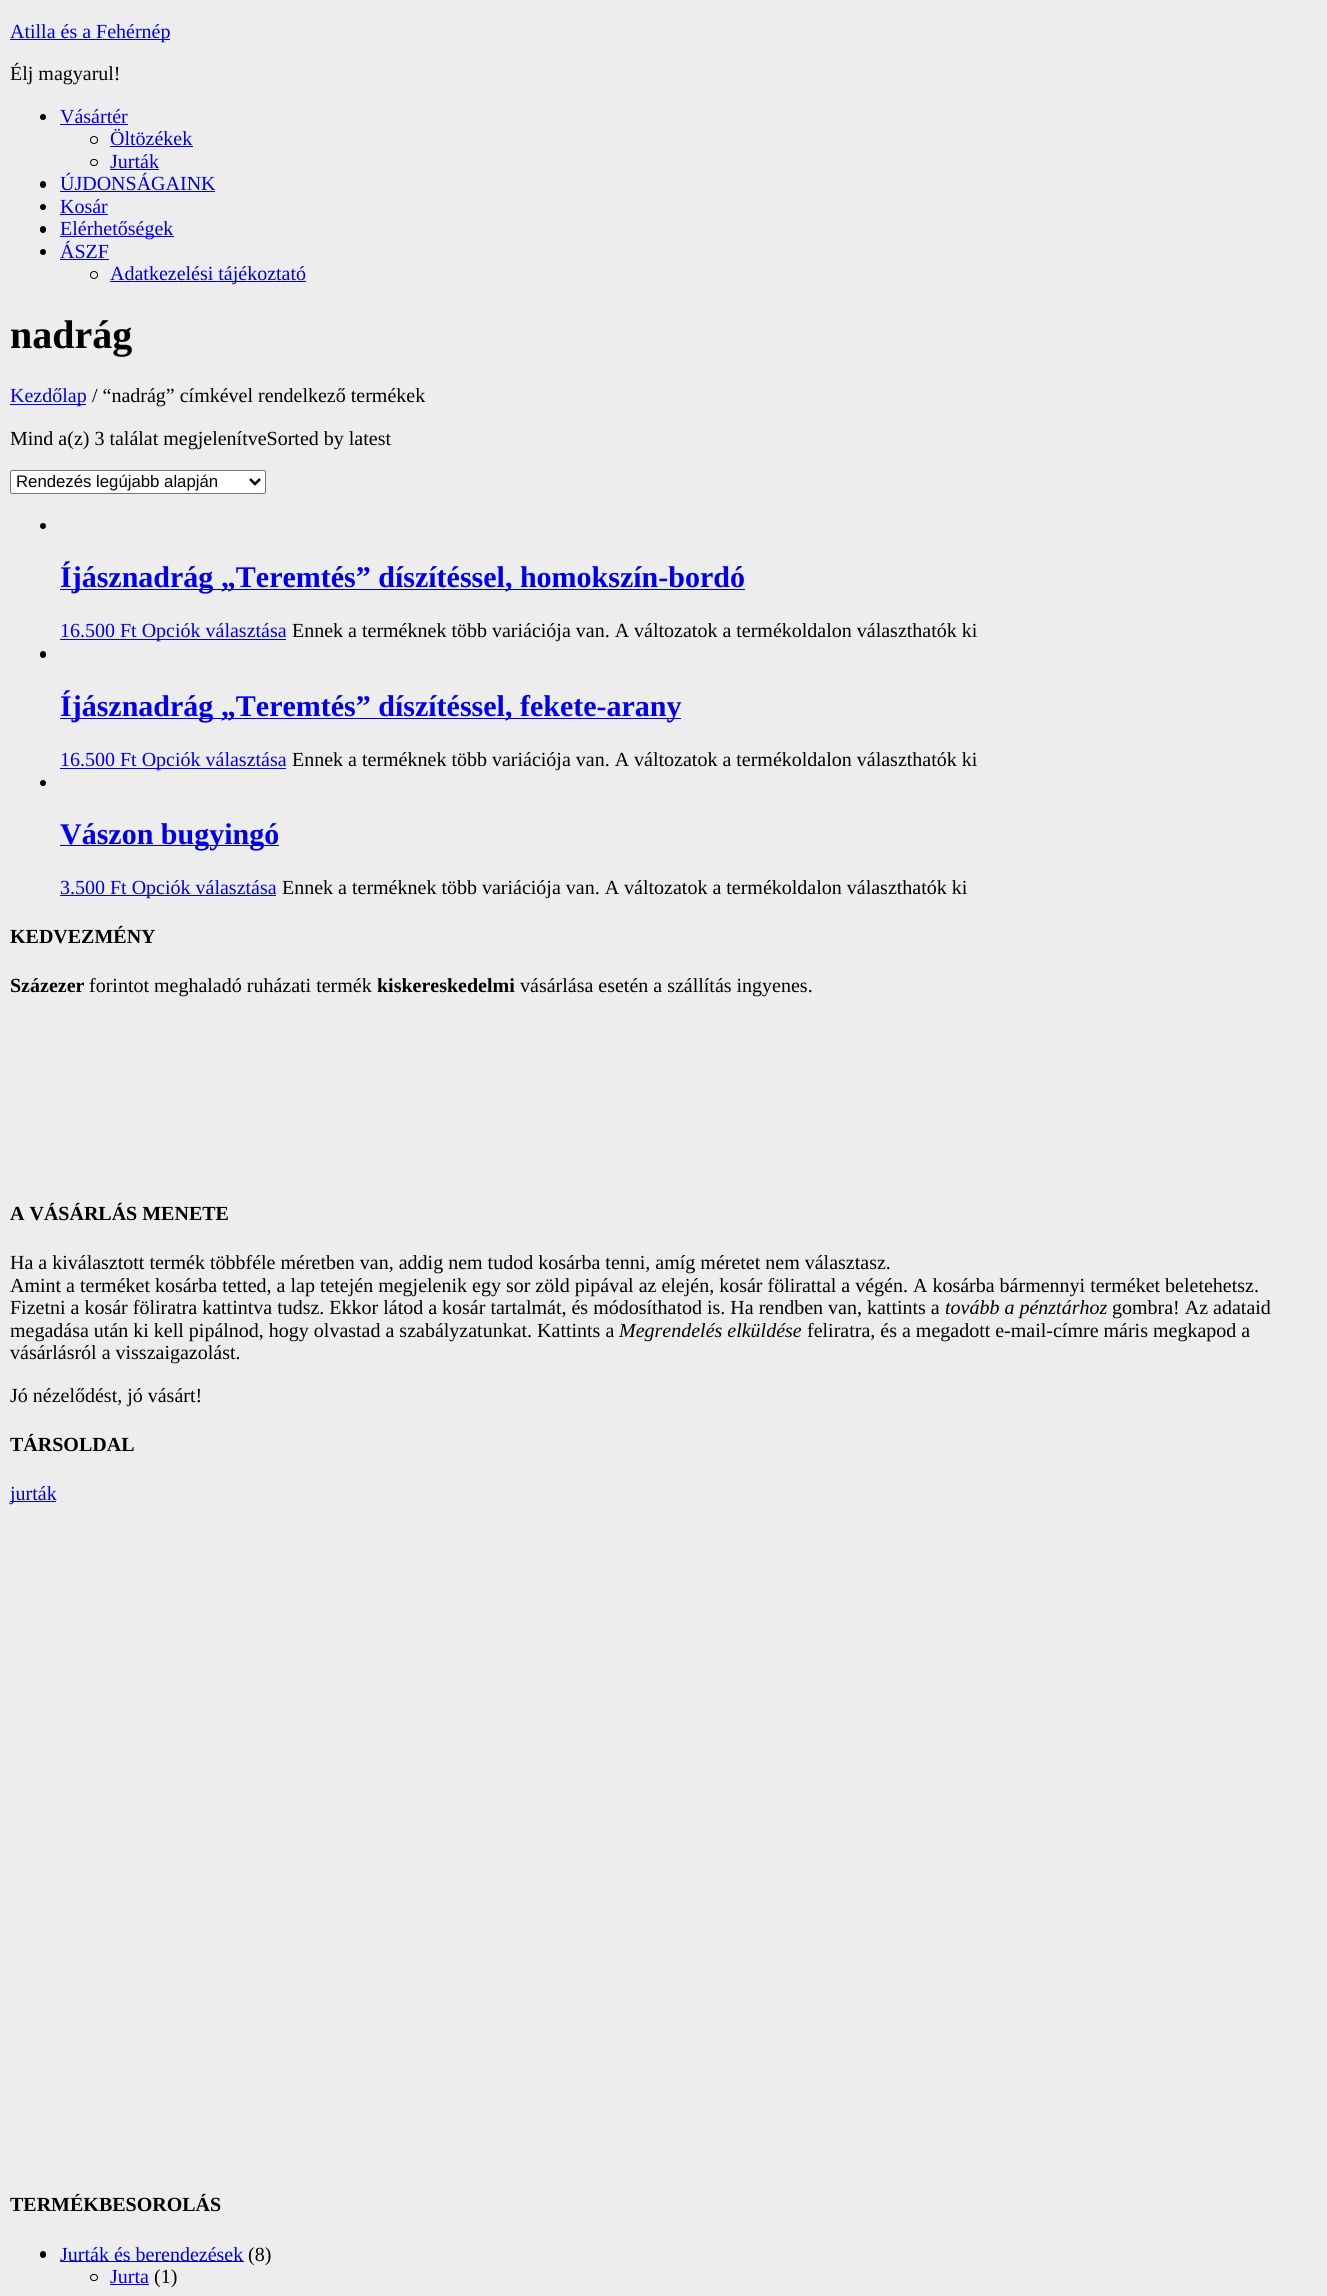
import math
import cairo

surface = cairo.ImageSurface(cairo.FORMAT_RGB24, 1327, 2296)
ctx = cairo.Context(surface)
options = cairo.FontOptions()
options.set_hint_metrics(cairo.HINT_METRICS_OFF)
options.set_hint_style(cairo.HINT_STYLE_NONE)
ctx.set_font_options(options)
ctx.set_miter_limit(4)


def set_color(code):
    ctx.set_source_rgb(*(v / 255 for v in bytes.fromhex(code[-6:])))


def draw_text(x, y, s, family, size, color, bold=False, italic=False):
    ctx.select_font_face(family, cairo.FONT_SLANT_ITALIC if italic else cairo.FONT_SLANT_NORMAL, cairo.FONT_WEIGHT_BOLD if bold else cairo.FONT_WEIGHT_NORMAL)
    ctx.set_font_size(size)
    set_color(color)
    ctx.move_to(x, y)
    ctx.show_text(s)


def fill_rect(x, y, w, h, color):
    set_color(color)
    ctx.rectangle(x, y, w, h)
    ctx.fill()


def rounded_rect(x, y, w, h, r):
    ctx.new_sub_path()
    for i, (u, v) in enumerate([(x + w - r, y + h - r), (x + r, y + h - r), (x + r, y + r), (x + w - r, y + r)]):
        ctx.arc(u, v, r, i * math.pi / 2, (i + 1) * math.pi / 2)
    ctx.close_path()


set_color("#ededed")
ctx.paint()
fill_rect(10, 39, 160, 1, "#0000ee")
draw_text(10, 38, "Atilla és a Fehérnép", "Liberation Serif", 20, "#0000ee")
draw_text(10, 80, "Élj magyarul!", "Liberation Serif", 20, "#000000")
ctx.new_path()
ctx.arc(43, 117, 3, 0, 2 * math.pi)
ctx.fill()
draw_text(60, 123, "Vásártér", "Liberation Serif", 20, "#0000ee")
fill_rect(60, 124, 68, 1, "#0000ee")
ctx.new_path()
ctx.arc(94, 140, 3.5, 0, 2 * math.pi)
set_color("#000000")
ctx.set_line_width(1)
ctx.stroke()
draw_text(110, 145, "Öltözékek", "Liberation Serif", 20, "#0000ee")
fill_rect(110, 146, 83, 1, "#0000ee")
rounded_rect(90.5, 159.5, 7, 6, 3)
set_color("#000000")
ctx.stroke()
draw_text(110, 168, "Jurták", "Liberation Serif", 20, "#0000ee")
fill_rect(110, 169, 49, 1, "#0000ee")
set_color("#000000")
rounded_rect(40, 181, 6, 7, 3)
ctx.fill()
draw_text(60, 190, "ÚJDONSÁGAINK", "Liberation Serif", 20, "#0000ee")
fill_rect(60, 191, 155, 1, "#0000ee")
set_color("#000000")
ctx.new_path()
ctx.arc(43, 207, 3, 0, 2 * math.pi)
ctx.fill()
draw_text(60, 213, "Kosár", "Liberation Serif", 20, "#0000ee")
fill_rect(60, 214, 48, 1, "#0000ee")
set_color("#000000")
rounded_rect(40, 226, 6, 7, 3)
ctx.fill()
fill_rect(60, 236, 114, 1, "#0000ee")
draw_text(60, 235, "Elérhetőségek", "Liberation Serif", 20, "#0000ee")
set_color("#000000")
ctx.new_path()
ctx.arc(43, 252, 3, 0, 2 * math.pi)
ctx.fill()
draw_text(60, 258, "ÁSZF", "Liberation Serif", 20, "#0000ee")
fill_rect(60, 259, 49, 1, "#0000ee")
ctx.new_path()
ctx.arc(94, 275, 3.5, 0, 2 * math.pi)
set_color("#000000")
ctx.stroke()
fill_rect(110, 281, 196, 1, "#0000ee")
draw_text(110, 280, "Adatkezelési tájékoztató", "Liberation Serif", 20, "#0000ee")
draw_text(10, 348, "nadrág", "Liberation Serif", 40, "#000000", bold=True)
fill_rect(10, 404, 76, 1, "#0000ee")
draw_text(10, 402, "Kezdőlap", "Liberation Serif", 20, "#0000ee")
draw_text(92, 402, "/ “nadrág” címkével rendelkező termékek", "Liberation Serif", 20, "#000000")
draw_text(10, 445, "Mind a(z) 3 találat megjelenítveSorted by latest", "Liberation Serif", 20, "#000000")
set_color("#ffffff")
rounded_rect(10.5, 470.5, 255, 23, 2)
ctx.fill_preserve()
set_color("#767676")
ctx.stroke()
ctx.new_path()
ctx.move_to(250, 479)
ctx.line_to(255, 484)
ctx.line_to(260, 479)
set_color("#000000")
ctx.set_line_width(2.5)
ctx.stroke()
draw_text(16, 487, "Rendezés legújabb alapján", "Liberation Sans", 16.75, "#000000")
ctx.new_path()
ctx.arc(43, 526, 3, 0, 2 * math.pi)
ctx.fill()
fill_rect(60, 589, 685, 1, "#0000ee")
draw_text(60, 587, "Íjásznadrág „Teremtés” díszítéssel, homokszín-bordó", "Liberation Serif", 30, "#0000ee", bold=True)
fill_rect(60, 639, 226, 1, "#0000ee")
draw_text(60, 637, "16.500 Ft Opciók választása", "Liberation Serif", 20, "#0000ee")
draw_text(292, 637, "Ennek a terméknek több variációja van. A változatok a termékoldalon választhatók ki", "Liberation Serif", 20, "#000000")
rounded_rect(40, 651, 6, 7, 3)
ctx.fill()
fill_rect(60, 718, 621, 1, "#0000ee")
draw_text(60, 716, "Íjásznadrág „Teremtés” díszítéssel, fekete-arany", "Liberation Serif", 30, "#0000ee", bold=True)
fill_rect(60, 768, 226, 1, "#0000ee")
draw_text(60, 766, "16.500 Ft Opciók választása", "Liberation Serif", 20, "#0000ee")
draw_text(292, 766, "Ennek a terméknek több variációja van. A változatok a termékoldalon választhatók ki", "Liberation Serif", 20, "#000000")
ctx.new_path()
ctx.arc(43, 783, 3, 0, 2 * math.pi)
ctx.fill()
fill_rect(60, 845, 219, 1, "#0000ee")
draw_text(60, 844, "Vászon bugyingó", "Liberation Serif", 30, "#0000ee", bold=True)
fill_rect(60, 895, 216, 1, "#0000ee")
draw_text(60, 894, "3.500 Ft Opciók választása", "Liberation Serif", 20, "#0000ee")
draw_text(282, 894, "Ennek a terméknek több variációja van. A változatok a termékoldalon választhatók ki", "Liberation Serif", 20, "#000000")
draw_text(10, 943, "KEDVEZMÉNY", "Liberation Serif", 20, "#000000", bold=True)
draw_text(10, 992, "Százezer", "Liberation Serif", 20, "#000000", bold=True)
draw_text(89, 992, "forintot meghaladó ruházati termék", "Liberation Serif", 20, "#000000")
draw_text(377, 992, "kiskereskedelmi", "Liberation Serif", 20, "#000000", bold=True)
draw_text(520, 992, "vásárlása esetén a szállítás ingyenes.", "Liberation Serif", 20, "#000000")
draw_text(10, 1220, "A VÁSÁRLÁS MENETE", "Liberation Serif", 20, "#000000", bold=True)
draw_text(10, 1269, "Ha a kiválasztott termék többféle méretben van, addig nem tudod kosárba tenni, amíg méretet nem választasz.", "Liberation Serif", 20, "#000000")
draw_text(10, 1292, "Amint a terméket kosárba tetted, a lap tetején megjelenik egy sor zöld pipával az elején, kosár fölirattal a végén. A kosárba bármennyi terméket beletehetsz.", "Liberation Serif", 20, "#000000")
draw_text(10, 1314, "Fizetni a kosár föliratra kattintva tudsz. Ekkor látod a kosár tartalmát, és módosíthatod is. Ha rendben van, kattints a", "Liberation Serif", 20, "#000000")
draw_text(945, 1314, "tovább a pénztárhoz", "Liberation Serif", 20, "#000000", italic=True)
draw_text(1112, 1314, "gombra! Az adataid", "Liberation Serif", 20, "#000000")
draw_text(10, 1337, "megadása után ki kell pipálnod, hogy olvastad a szabályzatunkat. Kattints a", "Liberation Serif", 20, "#000000")
draw_text(619, 1337, "Megrendelés elküldése", "Liberation Serif", 20, "#000000", italic=True)
draw_text(807, 1337, "feliratra, és a megadott e-mail-címre máris megkapod a", "Liberation Serif", 20, "#000000")
draw_text(10, 1359, "vásárlásról a visszaigazolást.", "Liberation Serif", 20, "#000000")
draw_text(10, 1402, "Jó nézelődést, jó vásárt!", "Liberation Serif", 20, "#000000")
draw_text(10, 1451, "TÁRSOLDAL", "Liberation Serif", 20, "#000000", bold=True)
fill_rect(10, 1501, 46, 1, "#0000ee")
draw_text(10, 1500, "jurták", "Liberation Serif", 20, "#0000ee")
draw_text(10, 2211, "TERMÉKBESOROLÁS", "Liberation Serif", 20, "#000000", bold=True)
rounded_rect(40, 2251, 6, 7, 3)
ctx.fill()
fill_rect(60, 2261, 184, 1, "#0000ee")
draw_text(60, 2261, "Jurták és berendezések", "Liberation Serif", 20, "#0000ee")
draw_text(248, 2261, "(8)", "Liberation Serif", 20, "#000000")
rounded_rect(90.5, 2274.5, 7, 6, 3)
ctx.set_line_width(1)
ctx.stroke()
draw_text(110, 2283, "Jurta", "Liberation Serif", 20, "#0000ee")
fill_rect(110, 2284, 39, 1, "#0000ee")
draw_text(154, 2283, "(1)", "Liberation Serif", 20, "#000000")
surface.write_to_png("output.png")
